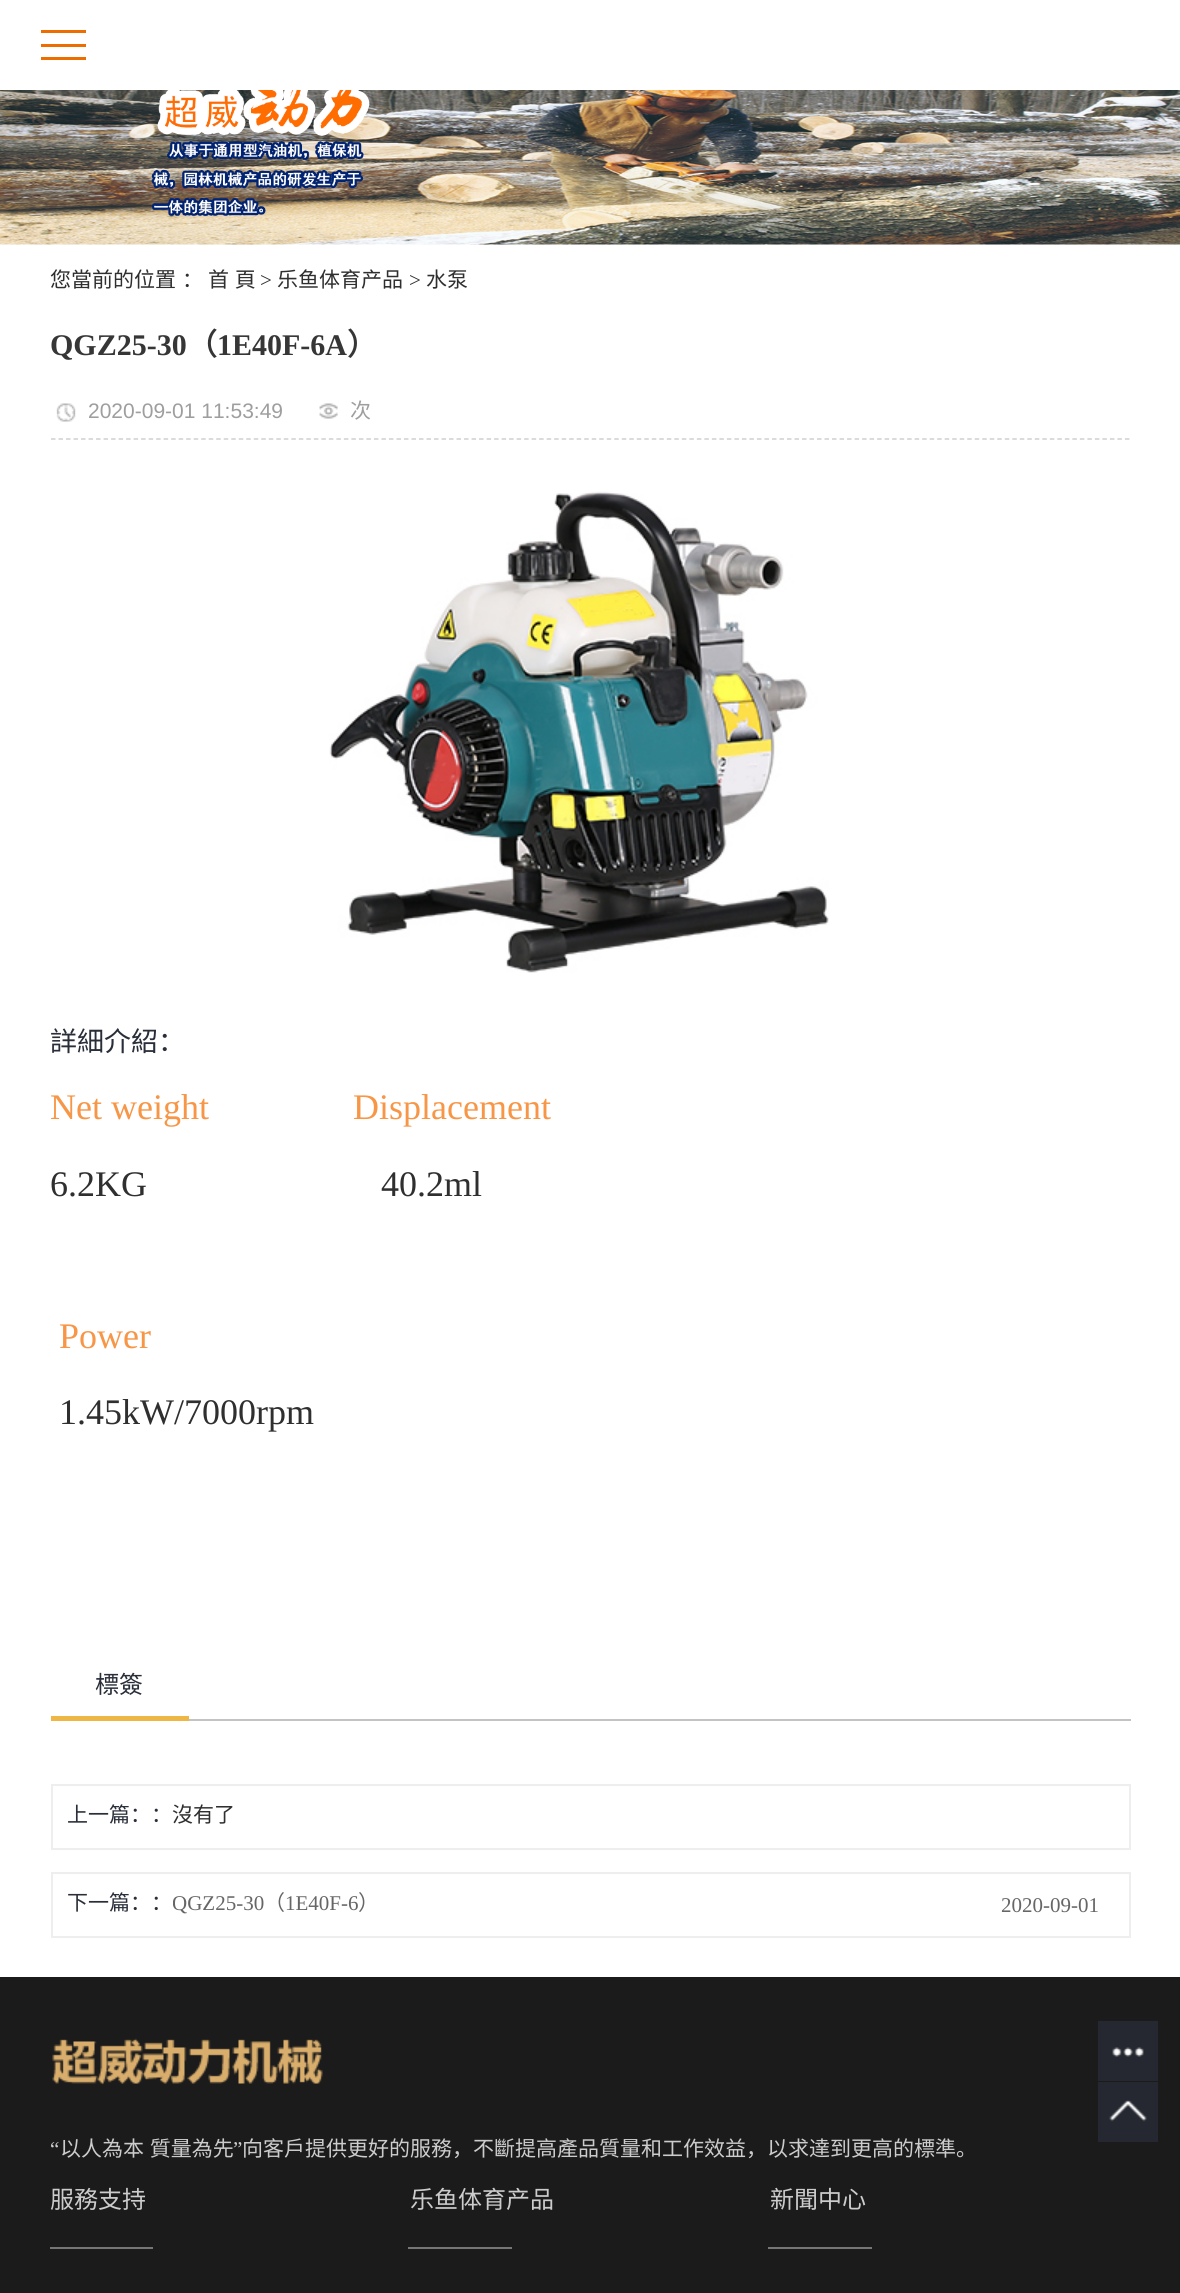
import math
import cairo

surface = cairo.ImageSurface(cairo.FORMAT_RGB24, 1180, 2293)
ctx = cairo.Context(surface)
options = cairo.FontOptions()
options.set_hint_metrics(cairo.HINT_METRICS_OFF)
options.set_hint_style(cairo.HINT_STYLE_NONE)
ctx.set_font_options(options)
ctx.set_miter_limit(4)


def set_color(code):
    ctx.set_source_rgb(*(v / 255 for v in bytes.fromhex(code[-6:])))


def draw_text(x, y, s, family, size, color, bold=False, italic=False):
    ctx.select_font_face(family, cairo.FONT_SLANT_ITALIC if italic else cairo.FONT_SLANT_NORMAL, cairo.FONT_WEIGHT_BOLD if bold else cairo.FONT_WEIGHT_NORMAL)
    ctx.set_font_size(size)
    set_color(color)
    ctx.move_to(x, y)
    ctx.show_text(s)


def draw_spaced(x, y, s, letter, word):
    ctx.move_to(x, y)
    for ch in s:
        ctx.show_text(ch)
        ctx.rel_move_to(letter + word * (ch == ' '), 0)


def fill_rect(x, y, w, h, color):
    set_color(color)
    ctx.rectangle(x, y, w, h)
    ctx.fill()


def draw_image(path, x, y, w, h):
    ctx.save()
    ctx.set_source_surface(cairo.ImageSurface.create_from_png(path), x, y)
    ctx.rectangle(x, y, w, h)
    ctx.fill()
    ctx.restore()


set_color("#ffffff")
ctx.paint()
fill_rect(41, 30, 45, 3, "#ed6d00")
fill_rect(41, 44, 45, 3, "#ed6d00")
fill_rect(41, 57, 45, 3, "#ed6d00")
draw_image("assets/img1.png", 0, 90, 1180, 155)
draw_text(50, 287, "您當前的位置", "Noto Sans CJK SC", 21, "#2f2f2f")
draw_text(182, 287, "：", "Noto Sans CJK SC", 21, "#2f2f2f")
draw_spaced(208, 287, "首 頁", 0, 1)
draw_text(260, 287, ">", "Liberation Serif", 21, "#2f2f2f")
draw_text(277, 287, "乐鱼体育产品", "Noto Sans CJK SC", 21, "#2f2f2f")
draw_text(409, 287, ">", "Liberation Serif", 21, "#2f2f2f")
draw_text(426, 287, "水泵", "Noto Sans CJK SC", 21, "#2f2f2f")
draw_text(50, 355, "QGZ25-30", "Liberation Serif", 30, "#363636", bold=True)
draw_text(187, 355, "（", "Noto Sans CJK SC", 30, "#363636", bold=True)
draw_text(217, 355, "1E40F-6A", "Liberation Serif", 30, "#363636", bold=True)
draw_text(347, 355, "）", "Noto Sans CJK SC", 30, "#363636", bold=True)
ctx.new_path()
ctx.move_to(51, 439)
ctx.line_to(1131, 439)
set_color("#cfcfcf")
ctx.set_line_width(1.5)
ctx.set_dash([4.5, 3.01])
ctx.stroke()
draw_image("assets/img2.png", 56, 403, 20, 19)
draw_text(88, 418, "2020-09-01 11:53:49", "Liberation Sans", 21, "#9e9e9e")
draw_image("assets/img3.png", 319, 403, 19, 16)
draw_text(350, 418, "次", "Noto Sans CJK SC", 21, "#9e9e9e")
draw_image("assets/img4.png", 329, 491, 500, 482)
draw_text(50, 1051, "詳細介紹：", "Noto Sans CJK SC", 27, "#292e39")
draw_text(50, 1119, "Net weight", "Liberation Serif", 36, "#f79646")
draw_text(353, 1119, "Displacement", "Liberation Serif", 36, "#f79646")
draw_text(50, 1196, "6.2KG                          40.2ml", "Liberation Serif", 36, "#2f2f2f")
draw_text(59, 1348, "Power", "Liberation Serif", 36, "#f79646")
draw_text(59, 1424, "1.45kW/7000rpm", "Liberation Serif", 36, "#2f2f2f")
fill_rect(189, 1719, 942, 2, "#c3c3c3")
fill_rect(51, 1716, 138, 5, "#eeb644")
draw_text(95, 1693, "標簽", "Noto Sans CJK SC", 24, "#292e39")
ctx.rectangle(52, 1785, 1078, 64)
set_color("#eeeeee")
ctx.set_line_width(2)
ctx.set_dash([])
ctx.stroke()
draw_text(67, 1822, "上一篇：：", "Noto Sans CJK SC", 21, "#292e39")
draw_text(172, 1822, "沒有了", "Noto Sans CJK SC", 21, "#2f2f2f")
ctx.rectangle(52, 1873, 1078, 64)
set_color("#eeeeee")
ctx.stroke()
draw_text(67, 1910, "下一篇：：", "Noto Sans CJK SC", 21, "#292e39")
ctx.save()
ctx.rectangle(173, 1889, 784, 33)
ctx.clip()
draw_text(172, 1910, "QGZ25-30", "Liberation Serif", 21, "#666666")
ctx.restore()
draw_text(264, 1910, "（", "Noto Sans CJK SC", 21, "#666666")
draw_text(285, 1910, "1E40F-6", "Liberation Serif", 21, "#666666")
draw_text(358, 1910, "）", "Noto Sans CJK SC", 21, "#666666")
draw_text(1001, 1912, "2020-09-01", "Liberation Serif", 21, "#666666")
fill_rect(0, 1977, 1180, 316, "#1b1b1c")
fill_rect(1098, 2021, 60, 60, "#252830")
draw_image("assets/img5.png", 1112, 2047, 32, 10)
fill_rect(1098, 2082, 60, 60, "#252830")
draw_image("assets/img6.png", 1109, 2100, 38, 22)
draw_image("assets/img7.png", 52, 2038, 271, 47)
draw_text(50, 2156, "“", "Liberation Serif", 21, "#cccccc")
ctx.select_font_face("Noto Sans CJK SC")
draw_spaced(60, 2156, "以人為本 質量為先", 0, 1)
draw_text(233, 2156, "”", "Liberation Serif", 21, "#cccccc")
draw_text(242, 2156, "向客戶提供更好的服務，不斷提高產品質量和工作效益，以求達到更高的標準。", "Noto Sans CJK SC", 21, "#cccccc")
draw_text(50, 2208, "服務支持", "Noto Sans CJK SC", 24, "#cccccc")
fill_rect(50, 2247, 103, 2, "#767677")
draw_text(410, 2208, "乐鱼体育产品", "Noto Sans CJK SC", 24, "#cccccc")
fill_rect(408, 2247, 104, 2, "#767677")
draw_text(770, 2208, "新聞中心", "Noto Sans CJK SC", 24, "#cccccc")
fill_rect(768, 2247, 104, 2, "#767677")
surface.write_to_png("output.png")
